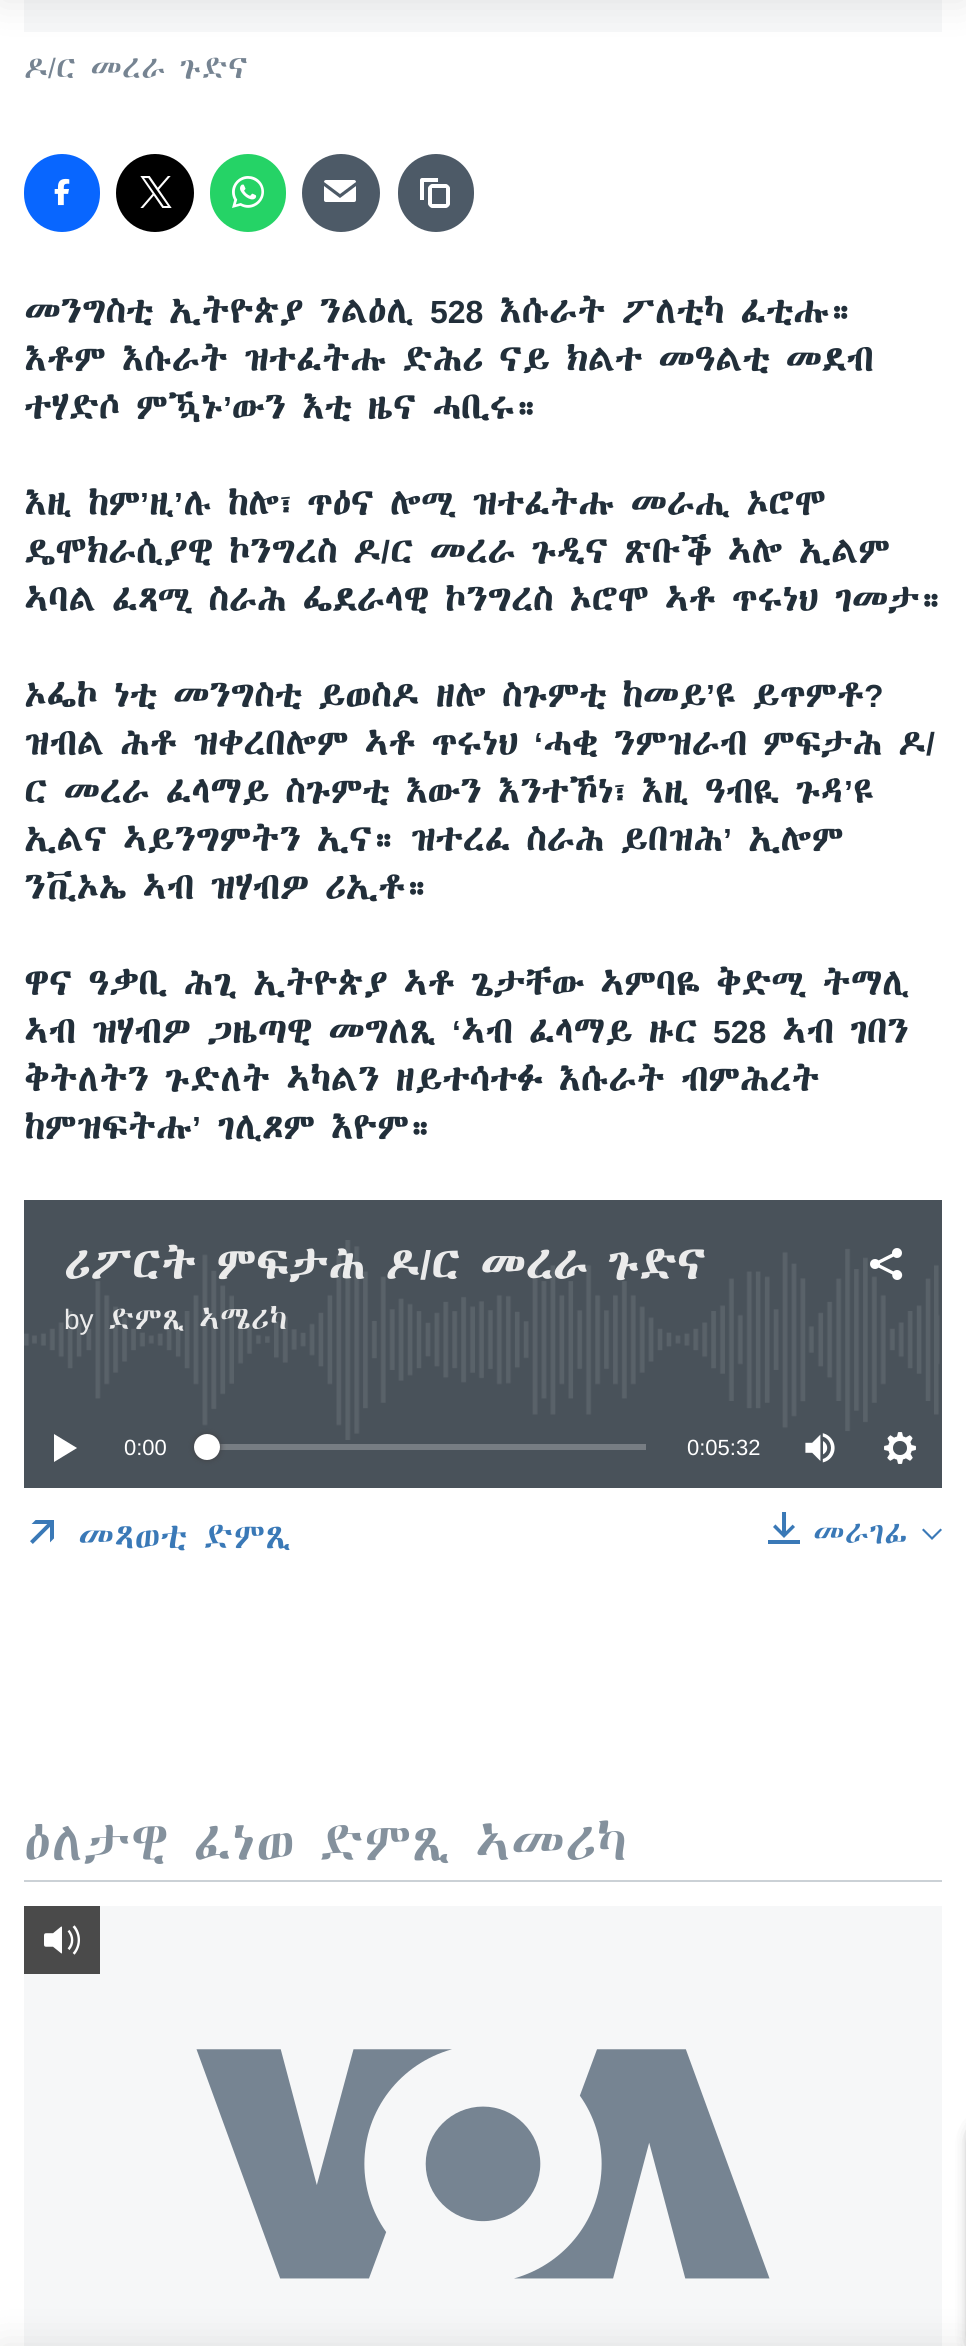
import math
import cairo

surface = cairo.ImageSurface(cairo.FORMAT_RGB24, 966, 2346)
ctx = cairo.Context(surface)
options = cairo.FontOptions()
options.set_hint_metrics(cairo.HINT_METRICS_OFF)
options.set_hint_style(cairo.HINT_STYLE_NONE)
ctx.set_font_options(options)
ctx.set_miter_limit(4)


def set_color(code):
    ctx.set_source_rgb(*(v / 255 for v in bytes.fromhex(code[-6:])))


def draw_text(x, y, s, family, size, color, bold=False, italic=False):
    ctx.select_font_face(family, cairo.FONT_SLANT_ITALIC if italic else cairo.FONT_SLANT_NORMAL, cairo.FONT_WEIGHT_BOLD if bold else cairo.FONT_WEIGHT_NORMAL)
    ctx.set_font_size(size)
    set_color(color)
    ctx.move_to(x, y)
    ctx.show_text(s)


def fill_rect(x, y, w, h, color):
    set_color(color)
    ctx.rectangle(x, y, w, h)
    ctx.fill()


def rounded_rect(x, y, w, h, r):
    ctx.new_sub_path()
    for i, (u, v) in enumerate([(x + w - r, y + h - r), (x + r, y + h - r), (x + r, y + r), (x + w - r, y + r)]):
        ctx.arc(u, v, r, i * math.pi / 2, (i + 1) * math.pi / 2)
    ctx.close_path()


def draw_shadow(x, y, w, h, r, blur, alpha):
    ctx.push_group_with_content(cairo.CONTENT_ALPHA)
    ctx.set_operator(cairo.OPERATOR_SOURCE)
    for i in range(15, -16, -2):
        e = blur * i / 6
        if min(w, h) + 2 * e > 0:
            ctx.set_source_rgba(0, 0, 0, alpha * math.erfc((i - 1) / 8.5) / 2)
            rounded_rect(x - e, y - e, w + 2 * e, h + 2 * e, max(0, min(r + e + blur * .6, min(w, h) / 2 + e)))
            ctx.fill()
    ctx.mask(ctx.pop_group())


def draw_image(path, x, y, w, h):
    ctx.save()
    ctx.set_source_surface(cairo.ImageSurface.create_from_png(path), x, y)
    ctx.rectangle(x, y, w, h)
    ctx.fill()
    ctx.restore()


set_color("#ffffff")
ctx.paint()
fill_rect(24, 0, 918, 32, "#f6f7f8")
set_color("#000000")
draw_shadow(0, -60, 966, 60, 0, 20, 0.1)
fill_rect(24, 1906, 918, 440, "#f6f7f8")
set_color("#000000")
draw_shadow(0, 2346, 966, 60, 0, 20, 0.1)
draw_text(24, 78, "ዶ", "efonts", 28, "#768492")
draw_text(48, 78, "/", "Liberation Sans", 28, "#768492")
draw_text(56, 78, "ር መረራ ጉድና", "efonts", 28, "#768492")
set_color("#0866ff")
rounded_rect(24, 154, 76, 78, 38)
ctx.fill()
draw_image("assets/img1.png", 54, 178, 16, 28)
set_color("#000000")
ctx.arc(155, 193, 39, 0, 2 * math.pi)
ctx.fill()
draw_image("assets/img2.png", 140, 176, 32, 32)
set_color("#25d366")
rounded_rect(210, 154, 76, 78, 38)
ctx.fill()
draw_image("assets/img3.png", 232, 176, 32, 32)
set_color("#4d5a67")
ctx.arc(341, 193, 39, 0, 2 * math.pi)
ctx.fill()
draw_image("assets/img4.png", 324, 180, 32, 22)
rounded_rect(398, 154, 76, 78, 38)
ctx.fill()
draw_image("assets/img5.png", 420, 178, 30, 30)
draw_text(24, 323, "መንግስቲ ኢትዮጵያ ንልዕሊ", "efonts", 32, "#222f3a", bold=True)
draw_text(430, 323, "528", "Liberation Sans", 32, "#222f3a", bold=True)
draw_text(499, 323, "እሱራት ፖለቲካ ፈቲሑ።", "efonts", 32, "#222f3a", bold=True)
draw_text(24, 371, "እቶም እሱራት ዝተፈትሑ ድሕሪ ናይ ክልተ መዓልቲ መደብ", "efonts", 32, "#222f3a", bold=True)
draw_text(24, 419, "ተሃድሶ ምዃኑ", "efonts", 32, "#222f3a", bold=True)
draw_text(223, 419, "’", "Liberation Sans", 32, "#222f3a", bold=True)
draw_text(232, 419, "ውን እቲ ዜና ሓቢሩ።", "efonts", 32, "#222f3a", bold=True)
draw_text(24, 515, "እዚ ከም", "efonts", 32, "#222f3a", bold=True)
draw_text(140, 515, "’", "Liberation Sans", 32, "#222f3a", bold=True)
draw_text(149, 515, "ዚ", "efonts", 32, "#222f3a", bold=True)
draw_text(174, 515, "’", "Liberation Sans", 32, "#222f3a", bold=True)
draw_text(183, 515, "ሉ ከሎ፣ ጥዕና ሎሚ ዝተፈትሑ መራሒ ኦሮሞ", "efonts", 32, "#222f3a", bold=True)
draw_text(24, 563, "ዴሞክራሲያዊ ኮንግረስ ዶ", "efonts", 32, "#222f3a", bold=True)
draw_text(381, 563, "/", "Liberation Sans", 32, "#222f3a", bold=True)
draw_text(390, 563, "ር መረራ ጉዲና ጽቡቕ ኣሎ ኢልም", "efonts", 32, "#222f3a", bold=True)
draw_text(24, 611, "ኣባል ፈጻሚ ስራሕ ፌደራላዊ ኮንግረስ ኦሮሞ ኣቶ ጥሩነህ ገመታ።", "efonts", 32, "#222f3a", bold=True)
draw_text(24, 707, "ኦፌኮ ነቲ መንግስቲ ይወስዶ ዘሎ ስጉምቲ ከመይ", "efonts", 32, "#222f3a", bold=True)
draw_text(706, 707, "’", "Liberation Sans", 32, "#222f3a", bold=True)
draw_text(715, 707, "ዩ ይጥምቶ", "efonts", 32, "#222f3a", bold=True)
draw_text(864, 707, "?", "Liberation Sans", 32, "#222f3a", bold=True)
draw_text(24, 755, "ዝብል ሕቶ ዝቀረበሎም ኣቶ ጥሩነህ", "efonts", 32, "#222f3a", bold=True)
draw_text(534, 755, "‘", "Liberation Sans", 32, "#222f3a", bold=True)
draw_text(543, 755, "ሓቂ ንምዝራብ ምፍታሕ ዶ", "efonts", 32, "#222f3a", bold=True)
draw_text(926, 755, "/", "Liberation Sans", 32, "#222f3a", bold=True)
draw_text(24, 803, "ር መረራ ፈላማይ ስጉምቲ እውን እንተኾነ፣ እዚ ዓብዪ ጉዳ", "efonts", 32, "#222f3a", bold=True)
draw_text(844, 803, "’", "Liberation Sans", 32, "#222f3a", bold=True)
draw_text(853, 803, "ዩ", "efonts", 32, "#222f3a", bold=True)
draw_text(24, 851, "ኢልና ኣይንግምትን ኢና። ዝተረፈ ስራሕ ይበዝሕ", "efonts", 32, "#222f3a", bold=True)
draw_text(723, 851, "’", "Liberation Sans", 32, "#222f3a", bold=True)
draw_text(748, 851, "ኢሎም", "efonts", 32, "#222f3a", bold=True)
draw_text(24, 899, "ንቪኦኤ ኣብ ዝሃብዎ ሪኢቶ።", "efonts", 32, "#222f3a", bold=True)
draw_text(24, 995, "ዋና ዓቃቢ ሕጊ ኢትዮጵያ ኣቶ ጌታቸው ኣምባዬ ቅድሚ ትማሊ", "efonts", 32, "#222f3a", bold=True)
draw_text(24, 1043, "ኣብ ዝሃብዎ ጋዜጣዊ መግለጺ", "efonts", 32, "#222f3a", bold=True)
draw_text(452, 1043, "‘", "Liberation Sans", 32, "#222f3a", bold=True)
draw_text(461, 1043, "ኣብ ፈላማይ ዙር", "efonts", 32, "#222f3a", bold=True)
draw_text(713, 1043, "528", "Liberation Sans", 32, "#222f3a", bold=True)
draw_text(782, 1043, "ኣብ ገበን", "efonts", 32, "#222f3a", bold=True)
draw_text(24, 1091, "ቅትለትን ጉድለት ኣካልን ዘይተሳተፉ እሱራት ብምሕረት", "efonts", 32, "#222f3a", bold=True)
draw_text(24, 1139, "ከምዝፍትሑ", "efonts", 32, "#222f3a", bold=True)
draw_text(192, 1139, "’", "Liberation Sans", 32, "#222f3a", bold=True)
draw_text(217, 1139, "ገሊጾም እዮም።", "efonts", 32, "#222f3a", bold=True)
fill_rect(24, 1200, 918, 288, "#49525a")
draw_image("assets/img6.png", 24, 1240, 916, 200)
draw_text(64, 1279, "ሪፖርት ምፍታሕ ዶ", "efonts", 40, "#ebebeb", bold=True)
draw_text(420, 1279, "/", "Liberation Sans", 40, "#ebebeb", bold=True)
draw_text(431, 1279, "ር መረራ ጉድና", "efonts", 40, "#ebebeb", bold=True)
draw_text(64, 1329, "by", "Liberation Sans", 28, "#ebebeb")
draw_text(108, 1329, "ድምጺ ኣሜሪካ", "efonts", 28, "#ebebeb")
draw_image("assets/img7.png", 870, 1248, 33, 32)
set_color("#ffffff")
ctx.new_path()
ctx.move_to(54, 1462)
ctx.line_to(77, 1448)
ctx.line_to(54, 1434)
ctx.close_path()
ctx.fill()
draw_text(124, 1455, "0:00", "Liberation Sans", 22, "#ffffff")
fill_rect(219, 1444, 427, 6, "#777d83")
set_color("#414144")
draw_shadow(194, 1434, 26, 26, 13, 3, 1)
set_color("#ffffff")
ctx.arc(207, 1447, 13, 0, 2 * math.pi)
ctx.fill()
draw_text(687, 1455, "0:05:32", "Liberation Sans", 22, "#ffffff")
draw_image("assets/img8.png", 805, 1433, 30, 30)
draw_image("assets/img9.png", 884, 1432, 32, 32)
draw_image("assets/img10.png", 30, 1520, 24, 24)
draw_text(78, 1548, "መጻወቲ ድምጺ", "efonts", 32, "#3a79b7")
draw_image("assets/img11.png", 768, 1512, 32, 32)
draw_text(813, 1543, "መራገፊ", "efonts", 28, "#3a79b7")
ctx.new_path()
ctx.move_to(922, 1530)
ctx.line_to(932, 1540)
ctx.line_to(942, 1530)
ctx.line_to(940.5, 1528.5)
ctx.line_to(932, 1537)
ctx.line_to(923.5, 1528.5)
ctx.close_path()
ctx.fill()
fill_rect(24, 1880, 918, 2, "#cbd1d6")
draw_text(24, 1860, "ዕለታዊ ፈነወ ድምጺ ኣመሪካ", "efonts", 48, "#84919d")
draw_image("assets/img12.png", 196, 2049, 574, 230)
fill_rect(24, 1906, 76, 68, "#4a4a4a")
draw_image("assets/img13.png", 44, 1925, 36, 30)
set_color("#000000")
draw_shadow(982, 2132, 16, 214, 2, 10, 0.85)
draw_shadow(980, 2132, 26, 214, 10, 10, 0.85)
surface.write_to_png("output.png")
